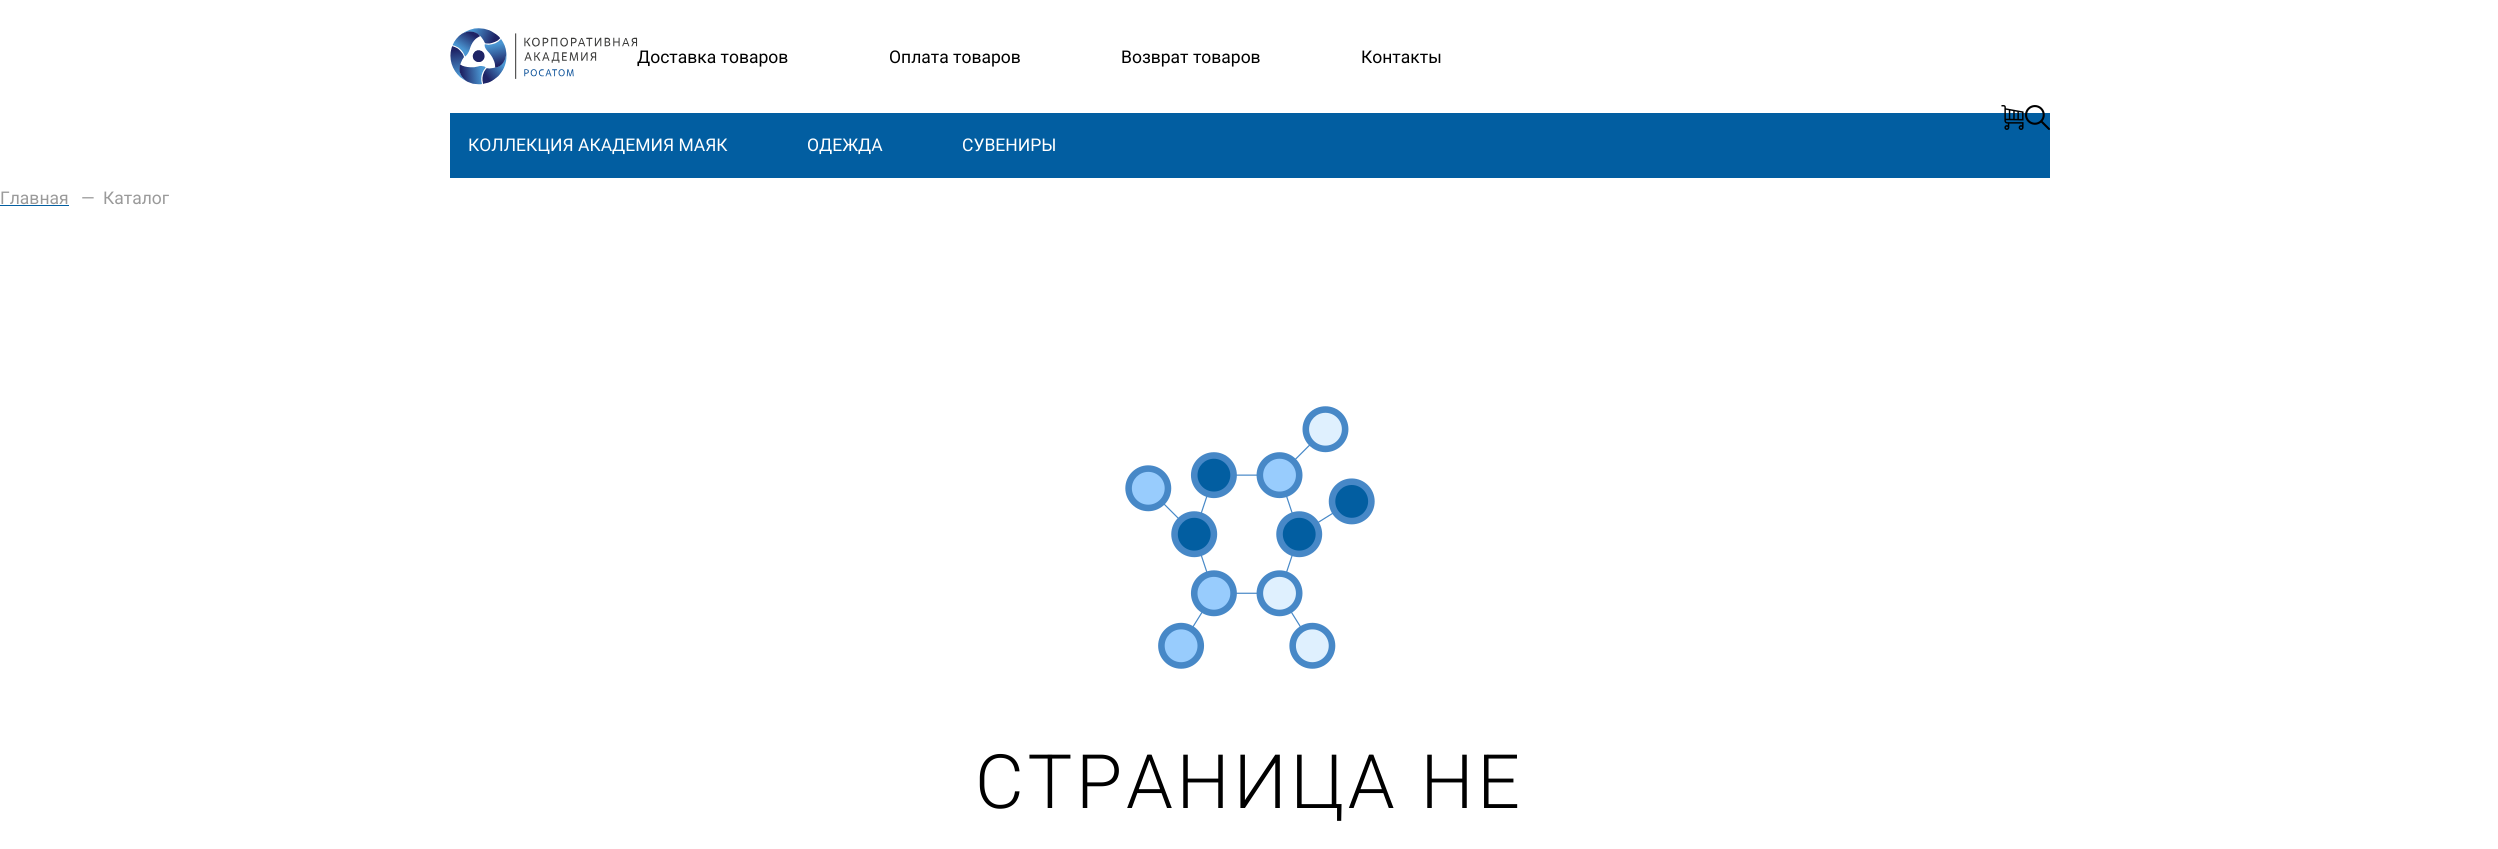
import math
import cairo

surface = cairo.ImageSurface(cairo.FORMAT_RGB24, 2498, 849)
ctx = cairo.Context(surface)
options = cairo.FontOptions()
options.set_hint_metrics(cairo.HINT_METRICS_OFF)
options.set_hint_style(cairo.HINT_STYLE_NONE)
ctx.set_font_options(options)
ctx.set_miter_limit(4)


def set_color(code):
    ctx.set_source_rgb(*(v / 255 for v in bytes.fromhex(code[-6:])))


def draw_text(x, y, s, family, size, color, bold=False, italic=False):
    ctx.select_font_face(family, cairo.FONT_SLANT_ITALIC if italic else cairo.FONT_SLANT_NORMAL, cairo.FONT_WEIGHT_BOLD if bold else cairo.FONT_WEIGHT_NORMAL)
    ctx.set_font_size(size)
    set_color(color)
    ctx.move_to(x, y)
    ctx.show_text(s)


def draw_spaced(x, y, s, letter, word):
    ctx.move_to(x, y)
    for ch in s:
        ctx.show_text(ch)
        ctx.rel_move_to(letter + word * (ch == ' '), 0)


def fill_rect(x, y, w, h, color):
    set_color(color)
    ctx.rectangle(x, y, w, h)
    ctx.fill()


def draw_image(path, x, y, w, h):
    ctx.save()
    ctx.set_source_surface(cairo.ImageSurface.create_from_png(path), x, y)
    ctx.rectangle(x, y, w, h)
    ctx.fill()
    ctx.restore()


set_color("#ffffff")
ctx.paint()
draw_image("assets/img1.png", 450, 28, 188, 57)
draw_text(637, 63, "Доставка товаров", "Roboto", 17.5, "#000000")
draw_text(889, 63, "Оплата товаров", "Roboto", 17.5, "#000000")
draw_text(1121, 63, "Возврат товаров", "Roboto", 17.5, "#000000")
draw_text(1361, 63, "Контакты", "Roboto", 17.5, "#000000")
fill_rect(450, 113, 1600, 65, "#025ea1")
draw_image("assets/img2.png", 2001, 105, 23, 25)
draw_image("assets/img3.png", 2025, 105, 25, 25)
draw_text(468, 151, "КОЛЛЕКЦИЯ АКАДЕМИЯ МАЯК", "Roboto", 17.5, "#ffffff")
draw_text(807, 151, "ОДЕЖДА", "Roboto", 17.5, "#ffffff")
draw_text(962, 151, "СУВЕНИРЫ", "Roboto", 17.5, "#ffffff")
draw_text(0, 204, "Главная", "Roboto", 17.5, "#9a9a9a")
fill_rect(0, 205, 69, 1, "#025ea1")
draw_text(81, 204, "—", "Roboto", 17.5, "#9a9a9a")
draw_text(103, 204, "Каталог", "Roboto", 17.5, "#9a9a9a")
draw_image("assets/img4.png", 1125, 406, 250, 263)
ctx.select_font_face("Roboto Light")
ctx.set_font_size(75)
set_color("#000000")
draw_spaced(975, 808, "СТРАНИЦА НЕ", 3.75, 0)
surface.write_to_png("output.png")
